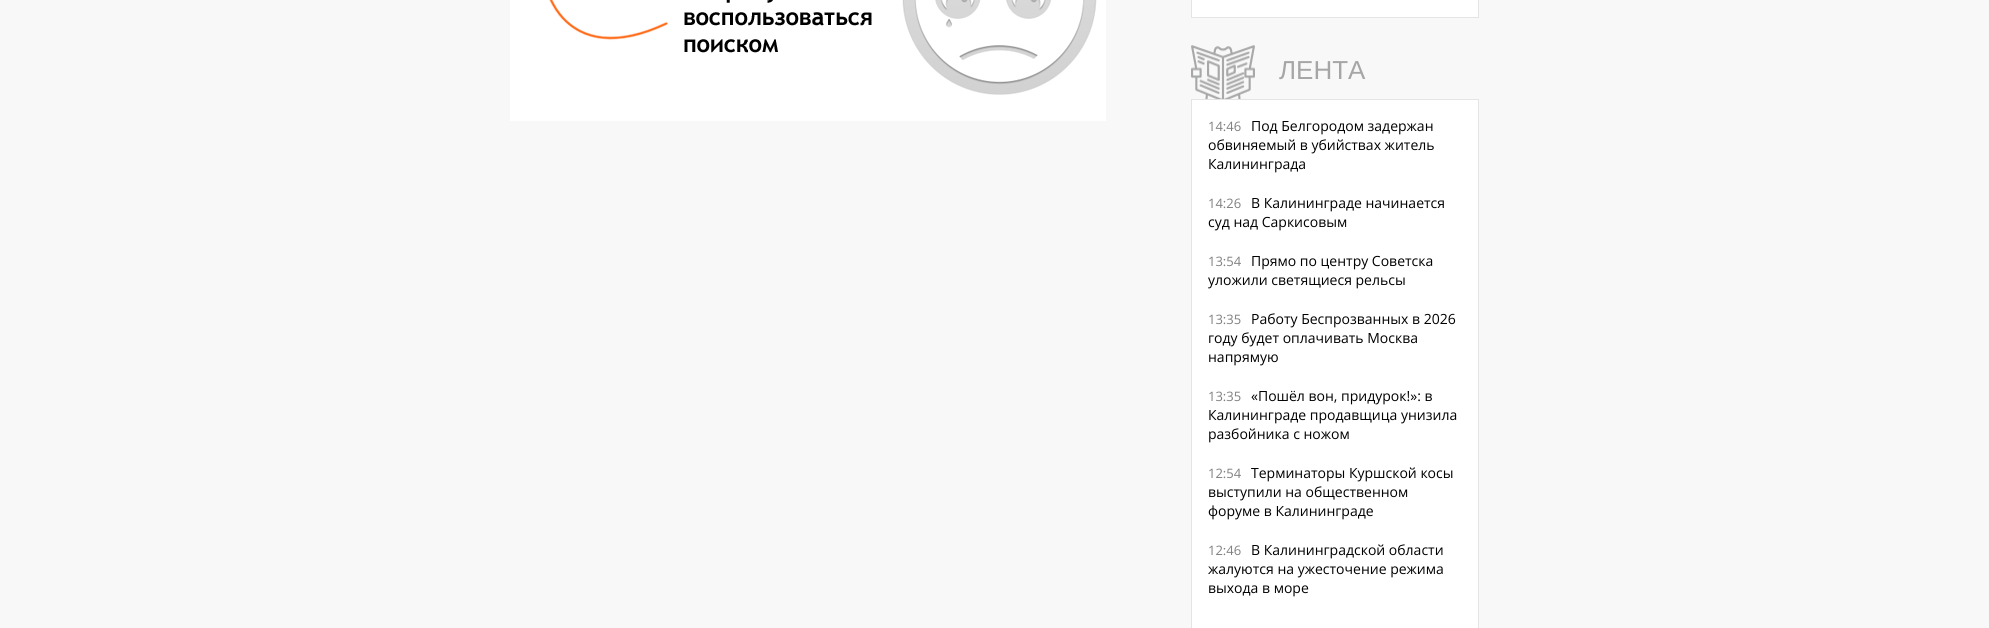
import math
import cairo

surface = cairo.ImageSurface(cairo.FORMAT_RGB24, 1989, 628)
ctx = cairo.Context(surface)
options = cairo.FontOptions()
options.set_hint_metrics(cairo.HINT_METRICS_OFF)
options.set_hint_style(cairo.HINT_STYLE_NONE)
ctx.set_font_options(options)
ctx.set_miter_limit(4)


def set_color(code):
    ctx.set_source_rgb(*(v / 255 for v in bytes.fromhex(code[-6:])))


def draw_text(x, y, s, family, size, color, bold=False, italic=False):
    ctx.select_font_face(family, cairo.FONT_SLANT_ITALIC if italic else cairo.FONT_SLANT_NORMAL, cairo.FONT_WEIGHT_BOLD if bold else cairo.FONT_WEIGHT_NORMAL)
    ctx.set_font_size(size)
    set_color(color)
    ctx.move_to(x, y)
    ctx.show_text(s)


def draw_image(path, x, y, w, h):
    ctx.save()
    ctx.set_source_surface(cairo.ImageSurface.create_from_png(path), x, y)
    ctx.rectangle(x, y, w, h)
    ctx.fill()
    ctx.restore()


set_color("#f8f8f8")
ctx.paint()
draw_image("assets/img1.png", 510, 0, 596, 121)
set_color("#ffffff")
ctx.rectangle(1191.5, -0.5, 287, 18)
ctx.fill_preserve()
set_color("#e4e4e4")
ctx.set_line_width(1)
ctx.stroke()
draw_image("assets/img2.png", 1191, 45, 64, 54)
draw_text(1279, 79, "ЛЕНТА", "Liberation Sans", 26, "#a6a6a6")
set_color("#ffffff")
ctx.rectangle(1191.5, 99.5, 287, 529)
ctx.fill_preserve()
set_color("#e4e4e4")
ctx.stroke()
draw_text(1208, 131, "14:46", "Open Sans", 13, "#808080")
draw_text(1251, 131, "Под Белгородом задержан", "Open Sans", 14, "#000000")
draw_text(1208, 150, "обвиняемый в убийствах житель", "Open Sans", 14, "#000000")
draw_text(1208, 169, "Калининграда", "Open Sans", 14, "#000000")
draw_text(1208, 208, "14:26", "Open Sans", 13, "#808080")
draw_text(1251, 208, "В Калининграде начинается", "Open Sans", 14, "#000000")
draw_text(1208, 227, "суд над Саркисовым", "Open Sans", 14, "#000000")
draw_text(1208, 266, "13:54", "Open Sans", 13, "#808080")
draw_text(1251, 266, "Прямо по центру Советска", "Open Sans", 14, "#000000")
draw_text(1208, 285, "уложили светящиеся рельсы", "Open Sans", 14, "#000000")
draw_text(1208, 324, "13:35", "Open Sans", 13, "#808080")
draw_text(1251, 324, "Работу Беспрозванных в 2026", "Open Sans", 14, "#000000")
draw_text(1208, 343, "году будет оплачивать Москва", "Open Sans", 14, "#000000")
draw_text(1208, 362, "напрямую", "Open Sans", 14, "#000000")
draw_text(1208, 401, "13:35", "Open Sans", 13, "#808080")
draw_text(1251, 401, "«Пошёл вон, придурок!»: в", "Open Sans", 14, "#000000")
draw_text(1208, 420, "Калининграде продавщица унизила", "Open Sans", 14, "#000000")
draw_text(1208, 439, "разбойника с ножом", "Open Sans", 14, "#000000")
draw_text(1208, 478, "12:54", "Open Sans", 13, "#808080")
draw_text(1251, 478, "Терминаторы Куршской косы", "Open Sans", 14, "#000000")
draw_text(1208, 497, "выступили на общественном", "Open Sans", 14, "#000000")
draw_text(1208, 516, "форуме в Калининграде", "Open Sans", 14, "#000000")
draw_text(1208, 555, "12:46", "Open Sans", 13, "#808080")
draw_text(1251, 555, "В Калининградской области", "Open Sans", 14, "#000000")
draw_text(1208, 574, "жалуются на ужесточение режима", "Open Sans", 14, "#000000")
draw_text(1208, 593, "выхода в море", "Open Sans", 14, "#000000")
surface.write_to_png("output.png")
